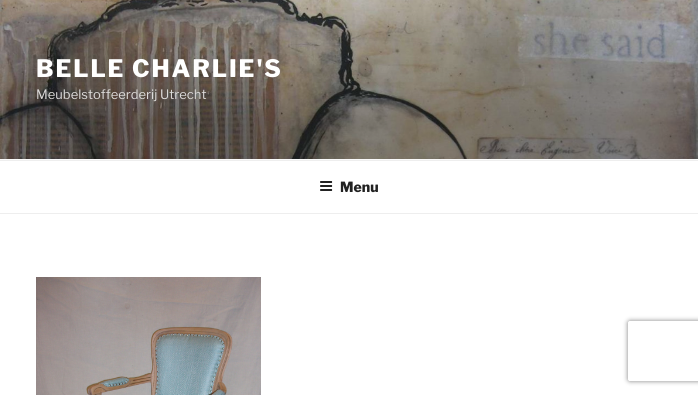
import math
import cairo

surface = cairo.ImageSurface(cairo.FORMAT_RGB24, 698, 395)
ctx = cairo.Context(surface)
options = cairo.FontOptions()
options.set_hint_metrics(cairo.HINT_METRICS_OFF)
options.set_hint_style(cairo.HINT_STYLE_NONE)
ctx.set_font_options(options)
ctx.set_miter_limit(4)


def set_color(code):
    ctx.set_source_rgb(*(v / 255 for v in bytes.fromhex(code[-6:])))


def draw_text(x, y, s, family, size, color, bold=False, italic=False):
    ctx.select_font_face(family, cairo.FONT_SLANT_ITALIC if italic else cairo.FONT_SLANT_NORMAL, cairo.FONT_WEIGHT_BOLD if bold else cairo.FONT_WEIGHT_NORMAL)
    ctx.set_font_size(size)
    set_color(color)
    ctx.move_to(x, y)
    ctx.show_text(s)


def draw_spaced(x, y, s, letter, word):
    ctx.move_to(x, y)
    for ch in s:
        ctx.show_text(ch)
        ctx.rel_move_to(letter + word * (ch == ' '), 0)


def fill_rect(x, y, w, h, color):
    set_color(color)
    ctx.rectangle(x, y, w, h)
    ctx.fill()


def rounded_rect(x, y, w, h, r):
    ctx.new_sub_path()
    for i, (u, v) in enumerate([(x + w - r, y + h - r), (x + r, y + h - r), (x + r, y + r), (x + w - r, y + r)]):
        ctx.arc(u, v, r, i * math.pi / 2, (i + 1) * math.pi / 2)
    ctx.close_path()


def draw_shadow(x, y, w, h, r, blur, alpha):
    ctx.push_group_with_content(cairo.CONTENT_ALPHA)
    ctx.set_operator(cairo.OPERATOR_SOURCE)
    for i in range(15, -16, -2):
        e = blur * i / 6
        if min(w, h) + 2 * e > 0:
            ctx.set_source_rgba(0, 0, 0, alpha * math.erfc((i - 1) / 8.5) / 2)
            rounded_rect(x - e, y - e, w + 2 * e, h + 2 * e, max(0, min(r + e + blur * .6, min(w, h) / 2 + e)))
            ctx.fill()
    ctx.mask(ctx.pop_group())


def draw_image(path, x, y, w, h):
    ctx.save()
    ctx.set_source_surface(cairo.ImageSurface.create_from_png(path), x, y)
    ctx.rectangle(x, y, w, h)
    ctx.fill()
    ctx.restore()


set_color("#ffffff")
ctx.paint()
fill_rect(0, 159, 698, 1, "#fafafa")
draw_image("assets/img1.png", 0, 0, 698, 159)
ctx.select_font_face("Libre Franklin Thin")
ctx.set_font_size(24)
set_color("#ffffff")
draw_spaced(36, 77, "BELLE CHARLIE'S", 1.9, 0)
draw_text(36, 99, "Meubelstoffeerderij Utrecht", "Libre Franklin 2 Thin", 13, "#dddbda")
fill_rect(0, 160, 698, 1, "#eeeeee")
fill_rect(0, 213, 698, 1, "#eeeeee")
draw_image("assets/img2.png", 320, 181, 13, 10)
draw_text(340, 192, "Menu", "Libre Franklin Thin", 14, "#222222")
draw_image("assets/img3.png", 36, 277, 225, 118)
ctx.save()
ctx.set_fill_rule(cairo.FILL_RULE_EVEN_ODD)
ctx.new_path()
ctx.move_to(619, 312)
ctx.line_to(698, 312)
ctx.line_to(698, 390)
ctx.line_to(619, 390)
ctx.close_path()
ctx.move_to(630, 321)
ctx.line_to(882, 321)
ctx.curve_to(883, 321, 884, 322, 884, 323)
ctx.line_to(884, 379)
ctx.curve_to(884, 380, 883, 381, 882, 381)
ctx.line_to(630, 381)
ctx.curve_to(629, 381, 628, 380, 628, 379)
ctx.line_to(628, 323)
ctx.curve_to(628, 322, 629, 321, 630, 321)
ctx.close_path()
ctx.clip()
set_color("#808080")
draw_shadow(628, 321, 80, 60, 2, 2.5, 1)
ctx.restore()
surface.write_to_png("output.png")
